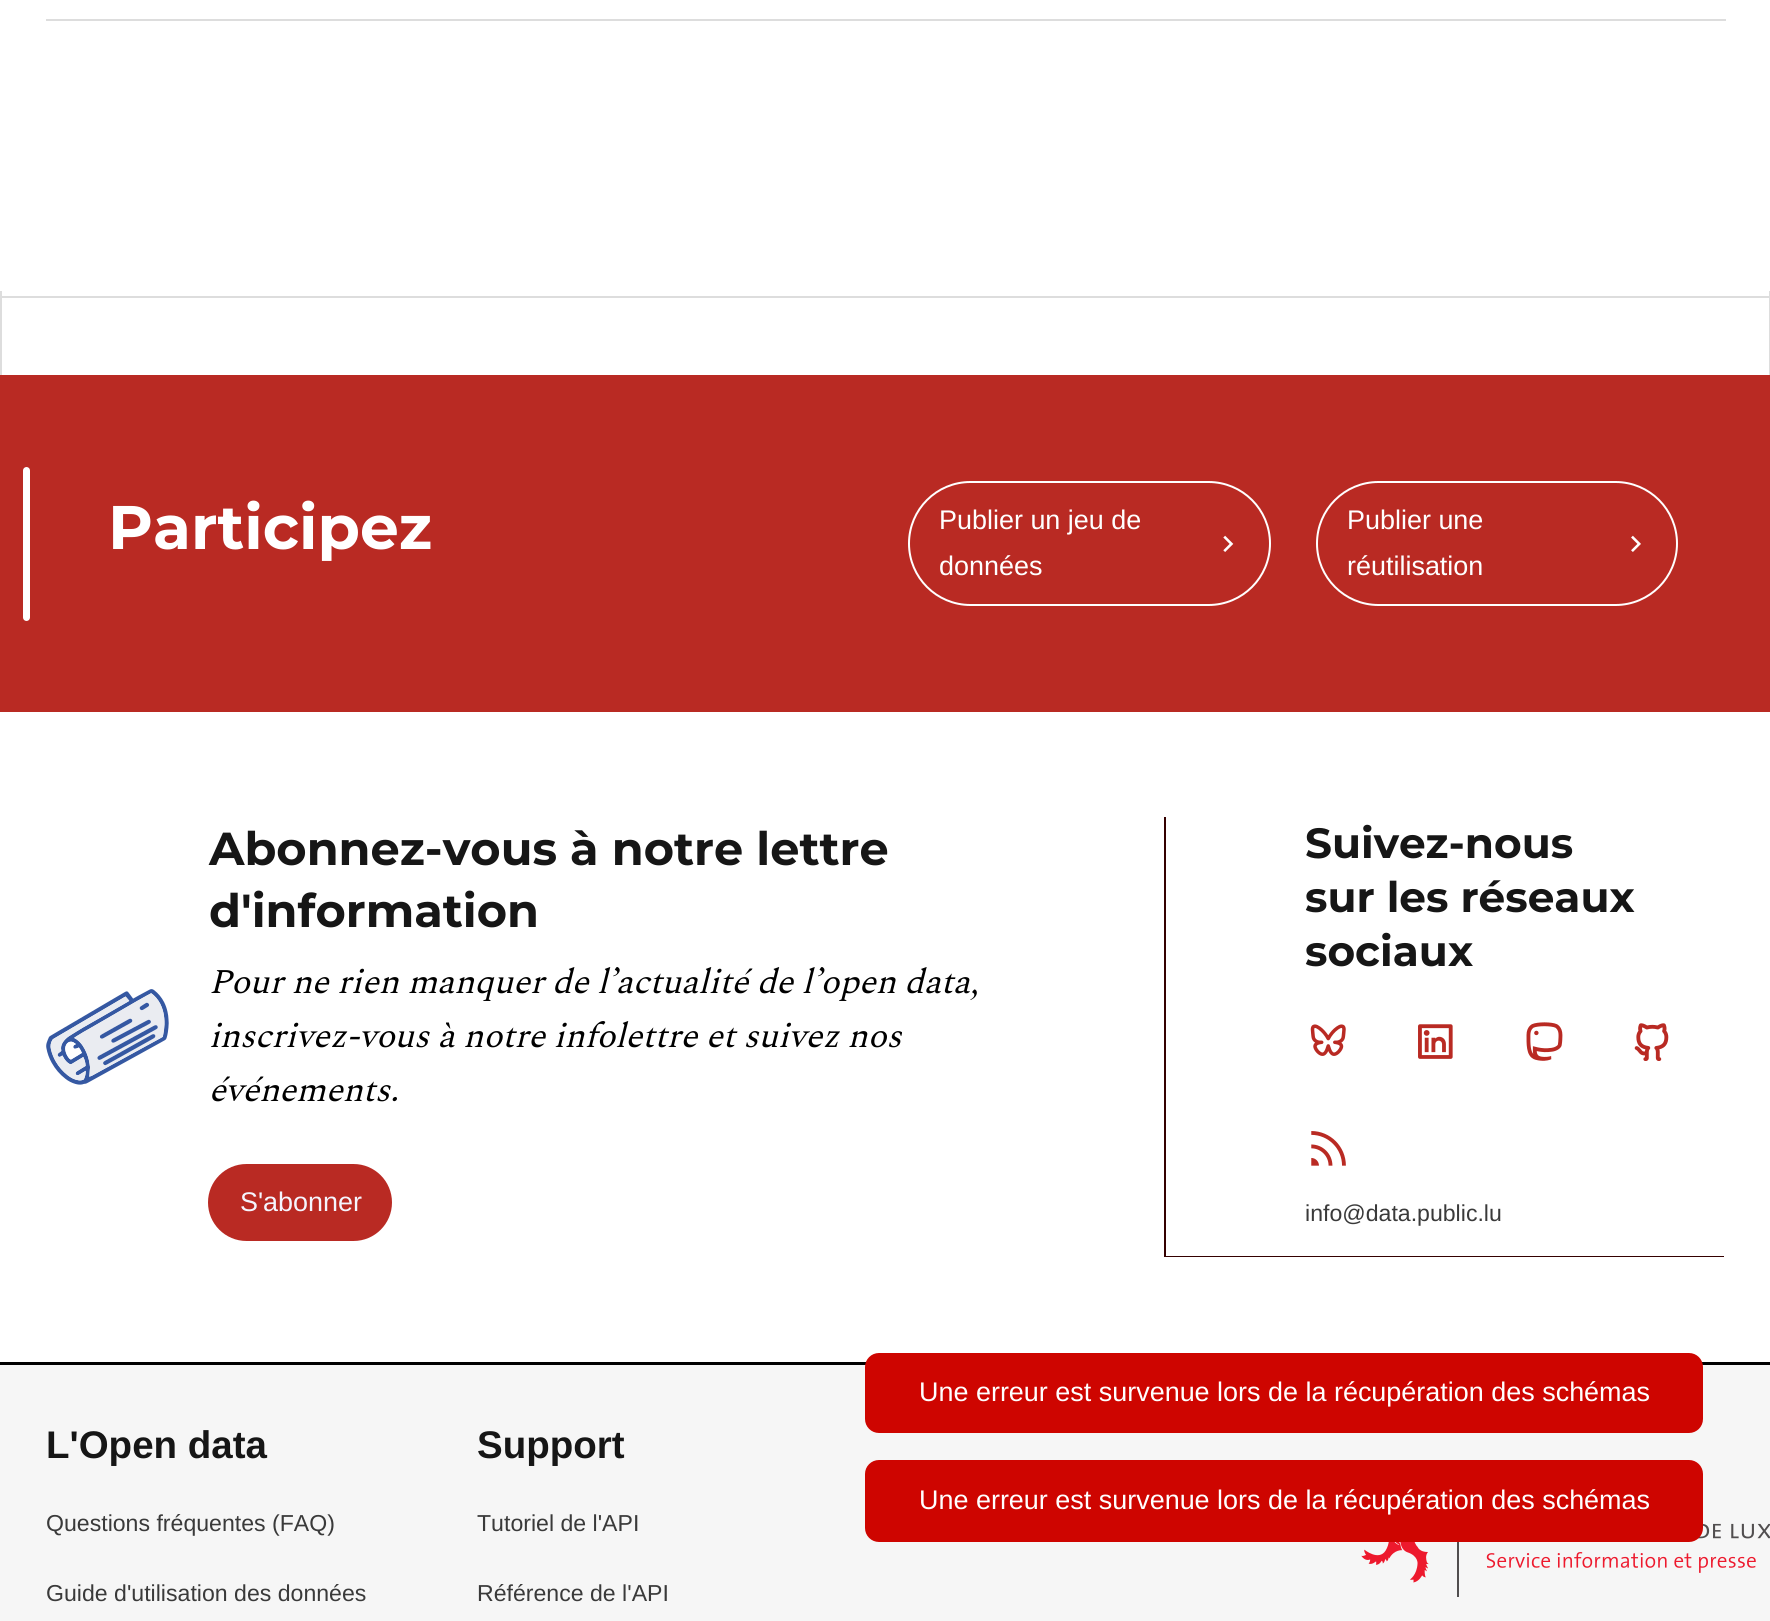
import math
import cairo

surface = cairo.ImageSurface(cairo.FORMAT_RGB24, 1770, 1621)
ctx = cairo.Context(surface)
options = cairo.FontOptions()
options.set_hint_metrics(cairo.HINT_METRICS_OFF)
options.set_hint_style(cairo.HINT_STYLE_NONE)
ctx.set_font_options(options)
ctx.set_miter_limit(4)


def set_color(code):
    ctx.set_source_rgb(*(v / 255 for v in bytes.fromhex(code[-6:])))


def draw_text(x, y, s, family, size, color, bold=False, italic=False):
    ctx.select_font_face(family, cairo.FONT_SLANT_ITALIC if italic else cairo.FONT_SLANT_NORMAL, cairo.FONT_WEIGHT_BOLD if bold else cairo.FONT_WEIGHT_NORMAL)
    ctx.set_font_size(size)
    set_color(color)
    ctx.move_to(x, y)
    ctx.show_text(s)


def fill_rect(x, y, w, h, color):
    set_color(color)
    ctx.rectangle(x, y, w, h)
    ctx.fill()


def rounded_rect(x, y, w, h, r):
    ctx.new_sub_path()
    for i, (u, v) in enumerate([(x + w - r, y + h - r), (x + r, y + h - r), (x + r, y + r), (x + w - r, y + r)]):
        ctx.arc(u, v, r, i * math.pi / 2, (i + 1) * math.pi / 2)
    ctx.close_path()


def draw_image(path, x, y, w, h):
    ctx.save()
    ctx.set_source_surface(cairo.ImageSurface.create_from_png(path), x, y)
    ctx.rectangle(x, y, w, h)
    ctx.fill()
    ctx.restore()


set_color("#ffffff")
ctx.paint()
fill_rect(0, 296, 1770, 2, "#dddddd")
fill_rect(46, 19, 1680, 2, "#dddddd")
fill_rect(1769, 291, 1, 84, "#dddddd")
fill_rect(0, 291, 2, 84, "#dddddd")
fill_rect(0, 375, 1770, 337, "#b92a23")
set_color("#ffffff")
rounded_rect(23, 467, 7, 154, 3.5)
ctx.fill()
draw_text(108, 549, "Participez", "Montserrat Thin", 61.5, "#ffffff")
rounded_rect(909, 482, 361, 123, 61.5)
ctx.stroke()
draw_text(939, 529, "Publier un jeu de", "Liberation Sans", 26.95, "#ffffff")
draw_image("assets/img1.png", 1223, 535, 11, 17)
draw_text(939, 575, "données", "Liberation Sans", 26.95, "#ffffff")
rounded_rect(1317, 482, 360, 123, 61.5)
ctx.stroke()
draw_text(1347, 529, "Publier une", "Liberation Sans", 26.95, "#ffffff")
draw_image("assets/img2.png", 1631, 535, 10, 17)
draw_text(1347, 575, "réutilisation", "Liberation Sans", 26.95, "#ffffff")
fill_rect(0, 1362, 1770, 3, "#000000")
draw_image("assets/img3.png", 46, 989, 123, 96)
draw_text(209, 865, "Abonnez-vous à notre lettre", "Montserrat Thin", 46.25, "#161616")
draw_text(209, 927, "d'information", "Montserrat Thin", 46.25, "#161616")
draw_text(209, 993, "Pour ne rien manquer de l’actualité de l’open data,", "Spectral", 34.65, "#000000", italic=True)
draw_text(209, 1047, "inscrivez-vous à notre infolettre et suivez nos", "Spectral", 34.65, "#000000", italic=True)
draw_text(209, 1101, "événements.", "Spectral", 34.65, "#000000", italic=True)
set_color("#b92a23")
rounded_rect(208, 1164, 184, 77, 38.5)
ctx.fill()
draw_text(240, 1211, "S'abonner", "Liberation Sans", 26.95, "#f5f5fe")
set_color("#340000")
ctx.new_path()
ctx.move_to(1164, 817)
ctx.line_to(1164, 1257)
ctx.line_to(1724, 1257)
ctx.line_to(1724, 1256)
ctx.line_to(1166, 1256)
ctx.line_to(1166, 817)
ctx.line_to(1724, 817)
ctx.close_path()
ctx.fill()
draw_text(1305, 858, "Suivez-nous", "Montserrat Thin", 42.25, "#161616")
draw_text(1305, 912, "sur les réseaux", "Montserrat Thin", 42.25, "#161616")
draw_text(1305, 966, "sociaux", "Montserrat Thin", 42.25, "#161616")
draw_image("assets/img4.png", 1310, 1024, 36, 32)
draw_image("assets/img5.png", 1418, 1024, 35, 35)
draw_image("assets/img6.png", 1526, 1022, 37, 39)
draw_image("assets/img7.png", 1634, 1023, 35, 38)
draw_image("assets/img8.png", 1311, 1131, 35, 35)
draw_text(1305, 1221, "info@data.public.lu", "Liberation Sans", 23.1, "#3a3a3a")
fill_rect(0, 1365, 1770, 256, "#f6f6f6")
draw_text(46, 1458, "L'Open data", "Liberation Sans", 38.5, "#161616", bold=True)
draw_text(46, 1531, "Questions fréquentes (FAQ)", "Liberation Sans", 23.1, "#3a3a3a")
draw_text(46, 1601, "Guide d'utilisation des données", "Liberation Sans", 23.1, "#3a3a3a")
draw_text(477, 1458, "Support", "Liberation Sans", 38.5, "#161616", bold=True)
draw_text(477, 1531, "Tutoriel de l'API", "Liberation Sans", 23.1, "#3a3a3a")
draw_text(477, 1601, "Référence de l'API", "Liberation Sans", 23.1, "#3a3a3a")
draw_image("assets/img9.png", 1361, 1523, 409, 74)
set_color("#ce0500")
rounded_rect(865, 1353, 838, 80, 14)
ctx.fill()
draw_text(919, 1401, "Une erreur est survenue lors de la récupération des schémas", "Liberation Sans", 26.95, "#ffffff")
set_color("#ce0500")
rounded_rect(865, 1460, 838, 82, 14)
ctx.fill()
draw_text(919, 1509, "Une erreur est survenue lors de la récupération des schémas", "Liberation Sans", 26.95, "#ffffff")
surface.write_to_png("output.png")
